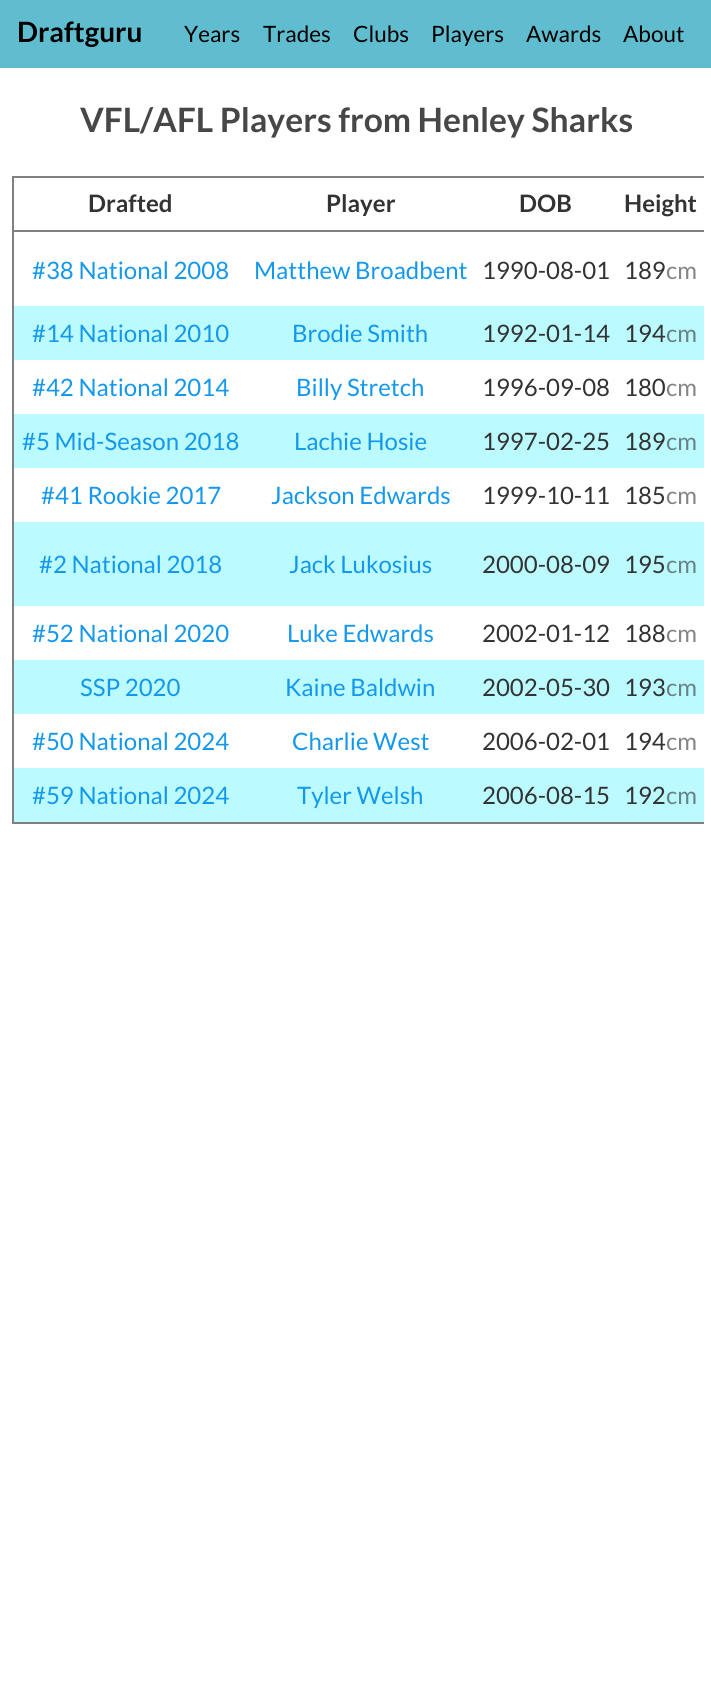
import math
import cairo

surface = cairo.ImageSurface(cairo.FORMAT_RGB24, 711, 1681)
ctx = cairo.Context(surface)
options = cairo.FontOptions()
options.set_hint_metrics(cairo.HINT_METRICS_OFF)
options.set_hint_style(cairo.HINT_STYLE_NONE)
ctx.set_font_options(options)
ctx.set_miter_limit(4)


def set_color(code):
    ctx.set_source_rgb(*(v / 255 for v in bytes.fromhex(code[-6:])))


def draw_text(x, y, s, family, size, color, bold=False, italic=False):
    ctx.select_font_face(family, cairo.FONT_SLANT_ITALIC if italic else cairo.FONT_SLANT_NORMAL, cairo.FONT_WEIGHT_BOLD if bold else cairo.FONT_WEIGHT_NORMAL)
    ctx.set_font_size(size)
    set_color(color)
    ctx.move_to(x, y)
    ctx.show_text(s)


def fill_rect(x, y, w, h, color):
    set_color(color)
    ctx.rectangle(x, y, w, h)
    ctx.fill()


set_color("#ffffff")
ctx.paint()
fill_rect(0, 0, 711, 68, "#5fbdcf")
draw_text(17, 42, "Draftguru", "Lato", 28, "#000000", bold=True)
draw_text(184, 42, "Years", "Lato", 22.5, "#000000")
draw_text(263, 42, "Trades", "Lato", 22.5, "#000000")
draw_text(353, 42, "Clubs", "Lato", 22.5, "#000000")
draw_text(431, 42, "Players", "Lato", 22.5, "#000000")
draw_text(526, 42, "Awards", "Lato", 22.5, "#000000")
draw_text(623, 42, "About", "Lato", 22.5, "#000000")
draw_text(80, 132, "VFL/AFL Players from Henley Sharks", "Lato", 33.6, "#474747", bold=True)
fill_rect(12, 176, 692, 2, "#808080")
fill_rect(12, 822, 692, 2, "#808080")
fill_rect(12, 176, 2, 648, "#808080")
fill_rect(12, 230, 692, 2, "#808080")
draw_text(88, 212, "Drafted", "Lato", 24, "#333333", bold=True)
draw_text(326, 212, "Player", "Lato", 24, "#333333", bold=True)
draw_text(519, 212, "DOB", "Lato", 24, "#333333", bold=True)
draw_text(624, 212, "Height", "Lato", 24, "#333333", bold=True)
draw_text(32, 279, "#38 National 2008", "Lato", 24, "#1498eb")
draw_text(254, 279, "Matthew Broadbent", "Lato", 24, "#1498eb")
draw_text(482, 279, "1990-08-01", "Lato", 24, "#333333")
draw_text(624, 279, "189", "Lato", 24, "#333333")
draw_text(666, 279, "cm", "Lato", 24, "#858585")
fill_rect(14, 306, 690, 54, "#bbfaff")
draw_text(32, 342, "#14 National 2010", "Lato", 24, "#1498eb")
draw_text(292, 342, "Brodie Smith", "Lato", 24, "#1498eb")
draw_text(482, 342, "1992-01-14", "Lato", 24, "#333333")
draw_text(624, 342, "194", "Lato", 24, "#333333")
draw_text(666, 342, "cm", "Lato", 24, "#698385")
draw_text(32, 396, "#42 National 2014", "Lato", 24, "#1498eb")
draw_text(296, 396, "Billy Stretch", "Lato", 24, "#1498eb")
draw_text(482, 396, "1996-09-08", "Lato", 24, "#333333")
draw_text(624, 396, "180", "Lato", 24, "#333333")
draw_text(666, 396, "cm", "Lato", 24, "#858585")
fill_rect(14, 414, 690, 54, "#bbfaff")
draw_text(22, 450, "#5 Mid-Season 2018", "Lato", 24, "#1498eb")
draw_text(294, 450, "Lachie Hosie", "Lato", 24, "#1498eb")
draw_text(482, 450, "1997-02-25", "Lato", 24, "#333333")
draw_text(624, 450, "189", "Lato", 24, "#333333")
draw_text(666, 450, "cm", "Lato", 24, "#698385")
draw_text(41, 504, "#41 Rookie 2017", "Lato", 24, "#1498eb")
draw_text(271, 504, "Jackson Edwards", "Lato", 24, "#1498eb")
draw_text(482, 504, "1999-10-11", "Lato", 24, "#333333")
draw_text(624, 504, "185", "Lato", 24, "#333333")
draw_text(666, 504, "cm", "Lato", 24, "#858585")
fill_rect(14, 522, 690, 84, "#bbfaff")
draw_text(39, 573, "#2 National 2018", "Lato", 24, "#1498eb")
draw_text(289, 573, "Jack Lukosius", "Lato", 24, "#1498eb")
draw_text(482, 573, "2000-08-09", "Lato", 24, "#333333")
draw_text(624, 573, "195", "Lato", 24, "#333333")
draw_text(666, 573, "cm", "Lato", 24, "#698385")
draw_text(32, 642, "#52 National 2020", "Lato", 24, "#1498eb")
draw_text(287, 642, "Luke Edwards", "Lato", 24, "#1498eb")
draw_text(482, 642, "2002-01-12", "Lato", 24, "#333333")
draw_text(624, 642, "188", "Lato", 24, "#333333")
draw_text(666, 642, "cm", "Lato", 24, "#858585")
fill_rect(14, 660, 690, 54, "#bbfaff")
draw_text(80, 696, "SSP 2020", "Lato", 24, "#1498eb")
draw_text(285, 696, "Kaine Baldwin", "Lato", 24, "#1498eb")
draw_text(482, 696, "2002-05-30", "Lato", 24, "#333333")
draw_text(624, 696, "193", "Lato", 24, "#333333")
draw_text(666, 696, "cm", "Lato", 24, "#698385")
draw_text(32, 750, "#50 National 2024", "Lato", 24, "#1498eb")
draw_text(292, 750, "Charlie West", "Lato", 24, "#1498eb")
draw_text(482, 750, "2006-02-01", "Lato", 24, "#333333")
draw_text(624, 750, "194", "Lato", 24, "#333333")
draw_text(666, 750, "cm", "Lato", 24, "#858585")
fill_rect(14, 768, 690, 54, "#bbfaff")
draw_text(32, 804, "#59 National 2024", "Lato", 24, "#1498eb")
draw_text(297, 804, "Tyler Welsh", "Lato", 24, "#1498eb")
draw_text(482, 804, "2006-08-15", "Lato", 24, "#333333")
draw_text(624, 804, "192", "Lato", 24, "#333333")
draw_text(666, 804, "cm", "Lato", 24, "#698385")
surface.write_to_png("output.png")
